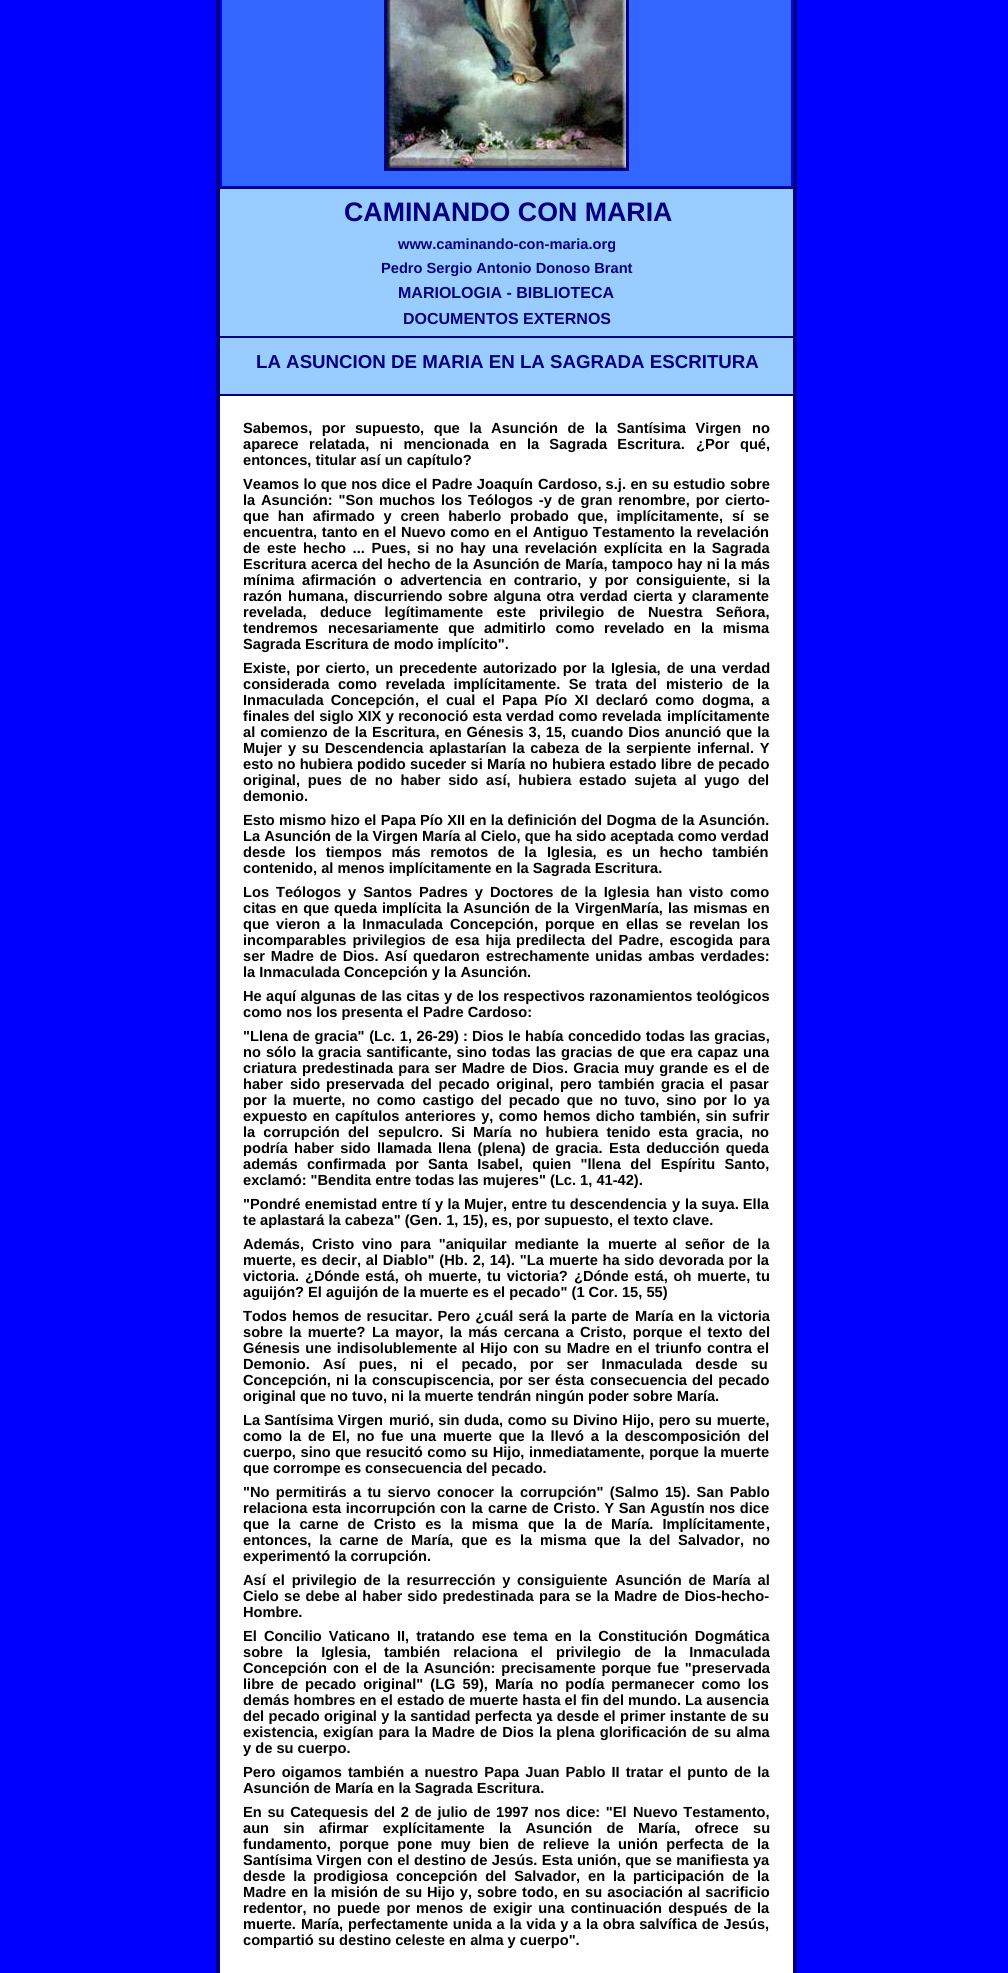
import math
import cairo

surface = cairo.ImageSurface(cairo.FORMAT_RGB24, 1008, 1973)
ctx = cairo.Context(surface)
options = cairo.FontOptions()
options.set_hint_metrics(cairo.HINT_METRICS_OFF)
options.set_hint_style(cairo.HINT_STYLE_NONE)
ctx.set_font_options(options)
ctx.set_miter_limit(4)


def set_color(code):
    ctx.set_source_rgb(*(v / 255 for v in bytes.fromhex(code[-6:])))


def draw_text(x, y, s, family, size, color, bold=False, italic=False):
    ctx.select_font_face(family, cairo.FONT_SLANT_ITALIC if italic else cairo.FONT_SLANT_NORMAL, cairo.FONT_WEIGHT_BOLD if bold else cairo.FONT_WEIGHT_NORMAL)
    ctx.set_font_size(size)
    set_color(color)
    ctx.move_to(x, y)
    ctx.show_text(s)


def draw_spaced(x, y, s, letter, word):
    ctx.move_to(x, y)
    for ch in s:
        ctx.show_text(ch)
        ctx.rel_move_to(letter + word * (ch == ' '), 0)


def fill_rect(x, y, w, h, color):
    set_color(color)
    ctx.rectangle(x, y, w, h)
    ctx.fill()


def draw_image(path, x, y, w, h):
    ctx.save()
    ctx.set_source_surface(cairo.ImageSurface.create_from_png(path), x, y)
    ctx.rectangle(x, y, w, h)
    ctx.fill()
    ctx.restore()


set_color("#0000ff")
ctx.paint()
fill_rect(222, 0, 569, 186, "#3366ff")
fill_rect(217, 187, 579, 2, "#000080")
draw_image("assets/img1.png", 384, 0, 245, 171)
fill_rect(220, 189, 573, 147, "#99ccff")
fill_rect(217, 336, 579, 2, "#000080")
draw_text(344, 221, "CAMINANDO CON MARIA", "Liberation Sans", 26.75, "#000080", bold=True)
draw_text(398, 249, "www.caminando-con-maria.org", "Liberation Sans", 14.65, "#000080", bold=True)
draw_text(381, 273, "Pedro Sergio Antonio Donoso Brant", "Liberation Sans", 14.65, "#000080", bold=True)
draw_text(398, 298, "MARIOLOGIA - BIBLIOTECA", "Liberation Sans", 16, "#000080", bold=True)
draw_text(403, 324, "DOCUMENTOS EXTERNOS", "Liberation Sans", 16, "#000080", bold=True)
fill_rect(220, 338, 573, 56, "#99ccff")
fill_rect(217, 394, 579, 2, "#000080")
draw_text(256, 368, "LA ASUNCION DE MARIA EN LA SAGRADA ESCRITURA", "Liberation Sans", 18.7, "#000080", bold=True)
fill_rect(220, 396, 573, 1577, "#ffffff")
fill_rect(793, 0, 4, 1973, "#000080")
fill_rect(216, 0, 4, 1973, "#000080")
ctx.set_font_size(14.65)
set_color("#000000")
draw_spaced(243, 433, "Sabemos, por supuesto, que la Asunción de", 0, 5.5)
draw_spaced(595, 433, "la Santísima Virgen", 0, 5.5)
draw_text(752, 433, "no", "Liberation Sans", 14.65, "#000000", bold=True)
draw_spaced(243, 449, "aparece relatada, ni mencionada en", 0, 6.5)
draw_spaced(527, 449, "la Sagrada Escritura.", 0, 6)
draw_spaced(696, 449, "¿Por qué,", 0, 6.5)
draw_text(243, 465, "entonces, titular así un capítulo?", "Liberation Sans", 14.65, "#000000", bold=True)
draw_spaced(243, 489, "Veamos lo que nos dice el Padre Joaquín", 0, 0.25)
draw_text(538, 489, "Cardoso, s.j", "Liberation Sans", 14.65, "#000000", bold=True)
draw_spaced(622, 489, ". en su estudio", 0, 0.25)
draw_text(730, 489, "sobre", "Liberation Sans", 14.65, "#000000", bold=True)
draw_spaced(243, 505, "la Asunción: \"Son muchos los Teólogos -y de gran renombre, por", 0, 1.75)
draw_text(725, 505, "cierto-", "Liberation Sans", 14.65, "#000000", bold=True)
draw_spaced(243, 521, "que han afirmado y creen haberlo probado que, implícitamente, sí se", 0, 4.75)
draw_spaced(243, 537, "encuentra, tanto en el Nuevo como en el Antiguo Testamento la revelación", 0, 0.6)
draw_text(243, 553, "de", "Liberation Sans", 14.65, "#000000", bold=True)
draw_spaced(267, 553, "este hecho ... Pues, si no hay una revelación explícita en", 0, 2.5)
draw_spaced(693, 553, "la Sagrada", 0, 2.5)
draw_text(243, 569, "Escritura", "Liberation Sans", 14.65, "#000000", bold=True)
draw_spaced(311, 569, "acerca del hecho de la Asunción de María, tampoco hay ni la más", 0, 0.25)
draw_text(243, 585, "mínima", "Liberation Sans", 14.65, "#000000", bold=True)
draw_spaced(302, 585, "afirmación o advertencia en contrario, y por consiguiente, si la", 0, 3.5)
draw_text(243, 601, "razón", "Liberation Sans", 14.65, "#000000", bold=True)
draw_spaced(288, 601, "humana, discurriendo sobre alguna otra verdad cierta y claramente", 0, 1.5)
draw_text(243, 617, "revelada,", "Liberation Sans", 14.65, "#000000", bold=True)
draw_spaced(320, 617, "deduce legítimamente este privilegio de Nuestra Señora,", 0, 9.25)
draw_text(243, 633, "tendremos", "Liberation Sans", 14.65, "#000000", bold=True)
draw_spaced(328, 633, "necesariamente que admitirlo como revelado en", 0, 5.5)
draw_spaced(701, 633, "la misma", 0, 5.5)
draw_text(243, 649, "Sagrada Escritura de modo implícito\".", "Liberation Sans", 14.65, "#000000", bold=True)
draw_spaced(243, 673, "Existe, por cierto, un precedente autorizado por la", 0, 1.75)
draw_spaced(611, 673, "Iglesia, de una verdad", 0, 2)
draw_spaced(243, 689, "considerada como revelada implícitamente. Se trata del", 0, 4.5)
draw_spaced(666, 689, "misterio de", 0, 5)
draw_text(757, 689, "la", "Liberation Sans", 14.65, "#000000", bold=True)
draw_spaced(243, 705, "Inmaculada Concepción", 0, 3)
draw_spaced(415, 705, ", el cual el Papa Pío XI declaró como", 0, 3.25)
draw_spaced(702, 705, "dogma, a", 0, 3.25)
draw_spaced(243, 721, "finales del siglo XIX y reconoció esta verdad como revelada", 0, 0.25)
draw_text(667, 721, "implícitamente", "Liberation Sans", 14.65, "#000000", bold=True)
draw_spaced(243, 737, "al comienzo de la Escritura, en Génesis 3, 15, cuando Dios", 0, 0.9)
draw_spaced(665, 737, "anunció que la", 0, 0.9)
draw_spaced(243, 753, "Mujer y su Descendencia aplastarían la cabeza de la serpiente", 0, 1.75)
draw_spaced(697, 753, "infernal. Y", 0, 1.75)
draw_spaced(243, 769, "esto no hubiera podido suceder si María no hubiera estado libre", 0, 0.25)
draw_text(697, 769, "de pecado", "Liberation Sans", 14.65, "#000000", bold=True)
draw_spaced(243, 785, "original, pues de no haber sido así, hubiera estado sujeta al yugo", 0, 3.75)
draw_text(748, 785, "del", "Liberation Sans", 14.65, "#000000", bold=True)
draw_text(243, 801, "demonio.", "Liberation Sans", 14.65, "#000000", bold=True)
draw_spaced(243, 825, "Esto mismo hizo el Papa Pío XII en la definición del Dogma", 0, 0.25)
draw_text(661, 825, "de la Asunción.", "Liberation Sans", 14.65, "#000000", bold=True)
draw_text(243, 841, "La Asunción de la Virgen María al Cielo, que ha sido aceptada como verdad", "Liberation Sans", 14.65, "#000000", bold=True)
draw_spaced(243, 857, "desde los tiempos más remotos de la", 0, 5.5)
draw_spaced(547, 857, "Iglesia, es un hecho también", 0, 5.5)
draw_text(243, 873, "contenido, al menos implícitamente en la Sagrada Escritura.", "Liberation Sans", 14.65, "#000000", bold=True)
draw_spaced(243, 897, "Los Teólogos y Santos Padres y Doctores de la Iglesia han", 0, 2.9)
draw_spaced(689, 897, "visto como", 0, 2.75)
draw_spaced(243, 913, "citas en que queda implícita la Asunción de la", 0, 0.75)
draw_text(575, 913, "VirgenMaría,", "Liberation Sans", 14.65, "#000000", bold=True)
draw_spaced(668, 913, "las mismas en", 0, 0.75)
draw_spaced(243, 929, "que vieron a", 0, 3)
draw_spaced(343, 929, "la Inmaculada Concepción", 0, 3)
draw_text(534, 929, ",", "Liberation Sans", 14.65, "#000000", bold=True)
draw_spaced(545, 929, "porque en ellas se revelan los", 0, 3)
draw_spaced(243, 945, "incomparables privilegios de esa hija", 0, 2)
draw_spaced(516, 945, "predilecta del Padre, escogida para", 0, 2)
draw_spaced(243, 961, "ser Madre de Dios. Así quedaron", 0, 1.75)
draw_spaced(486, 961, "estrechamente unidas ambas verdades:", 0, 1.75)
draw_text(243, 977, "la Inmaculada Concepción y la Asunción.", "Liberation Sans", 14.65, "#000000", bold=True)
draw_spaced(243, 1001, "He aquí algunas de las citas y de los respectivos", 0, 0.25)
draw_text(589, 1001, "razonamientos teológicos", "Liberation Sans", 14.65, "#000000", bold=True)
draw_text(243, 1017, "como nos los presenta el Padre Cardoso:", "Liberation Sans", 14.65, "#000000", bold=True)
draw_spaced(243, 1041, "\"Llena de gracia\" (Lc. 1, 26-29", 0, 0.5)
draw_text(454, 1041, ") :", "Liberation Sans", 14.65, "#000000", bold=True)
draw_spaced(472, 1041, "Dios le había concedido todas las gracias,", 0, 0.5)
draw_spaced(243, 1057, "no sólo la", 0, 1)
draw_spaced(318, 1057, "gracia santificante, sino todas las gracias de que era capaz una", 0, 0.9)
draw_text(243, 1073, "criatura", "Liberation Sans", 14.65, "#000000", bold=True)
draw_spaced(302, 1073, "predestinada para ser Madre de Dios. Gracia muy grande es el de", 0, 1.1)
draw_spaced(243, 1089, "haber sido", 0, 3)
draw_spaced(326, 1089, "preservada del pecado original, pero también gracia el pasar", 0, 2.5)
draw_spaced(243, 1105, "por la muerte,", 0, 2.75)
draw_spaced(352, 1105, "no como castigo del pecado que no tuvo, sino por lo ya", 0, 2.75)
draw_spaced(243, 1121, "expuesto en capítulos", 0, 1.25)
draw_spaced(405, 1121, "anteriores y, como hemos dicho también, sin sufrir", 0, 1.25)
draw_spaced(243, 1137, "la corrupción del", 0, 4)
draw_spaced(378, 1137, "sepulcro. Si María no hubiera tenido esta gracia, no", 0, 4)
draw_spaced(243, 1153, "podría haber sido", 0, 2.25)
draw_spaced(377, 1153, "llamada llena (plena) de gracia. Esta deducción queda", 0, 2.25)
draw_spaced(243, 1169, "además confirmada por", 0, 5.25)
draw_spaced(428, 1169, "Santa Isabel, quien \"llena del Espíritu Santo,", 0, 5.25)
draw_text(243, 1185, "exclamó: \"Bendita entre todas las mujeres\" (Lc. 1, 41-42).", "Liberation Sans", 14.65, "#000000", bold=True)
draw_spaced(243, 1209, "\"Pondré enemistad entre tí y la Mujer, entre tu descendencia", 0, 0.25)
draw_text(672, 1209, "y", "Liberation Sans", 14.65, "#000000", bold=True)
draw_text(685, 1209, "la suya. Ella", "Liberation Sans", 14.65, "#000000", bold=True)
draw_text(243, 1225, "te aplastará la cabeza\" (Gen. 1, 15), es, por supuesto, el texto clave.", "Liberation Sans", 14.65, "#000000", bold=True)
draw_spaced(243, 1249, "Además, Cristo vino para \"aniquilar mediante la", 0, 3.75)
draw_spaced(608, 1249, "muerte al señor de la", 0, 3.75)
draw_spaced(243, 1265, "muerte, es decir, al Diablo\" (Hb. 2, 14). \"La", 0, 0.75)
draw_spaced(549, 1265, "muerte ha sido devorada por la", 0, 0.5)
draw_spaced(243, 1281, "victoria. ¿Dónde está, oh muerte, tu victoria?", 0, 1.75)
draw_spaced(574, 1281, "¿Dónde está, oh muerte, tu", 0, 1.75)
draw_text(243, 1297, "aguijón? El aguijón de la muerte es el pecado\" (1 Cor. 15, 55)", "Liberation Sans", 14.65, "#000000", bold=True)
draw_spaced(243, 1321, "Todos hemos de resucitar. Pero ¿cuál será la parte de", 0, 1)
draw_spaced(635, 1321, "María en la victoria", 0, 1)
draw_spaced(243, 1337, "sobre la muerte? La mayor, la más cercana a Cristo, porque", 0, 2.25)
draw_spaced(689, 1337, "el texto del", 0, 2.25)
draw_spaced(243, 1353, "Génesis une indisolublemente al Hijo con su Madre en el triunfo", 0, 1.25)
draw_spaced(707, 1353, "contra el", 0, 1)
draw_spaced(243, 1369, "Demonio. Así pues, ni el pecado, por ser Inmaculada desde su", 0, 9)
draw_spaced(243, 1385, "Concepción, ni la", 0, 1)
draw_text(372, 1385, "conscupiscencia", "Liberation Sans", 14.65, "#000000", bold=True)
draw_spaced(490, 1385, ", por ser ésta", 0, 1)
draw_spaced(590, 1385, "consecuencia del pecado", 0, 1)
draw_text(243, 1401, "original que no tuvo, ni la muerte tendrán ningún poder sobre María.", "Liberation Sans", 14.65, "#000000", bold=True)
draw_text(243, 1425, "La Santísima Virgen", "Liberation Sans", 14.65, "#000000", bold=True)
draw_spaced(389, 1425, "murió, sin duda, como su", 0, 0.5)
draw_spaced(573, 1425, "Divino Hijo, pero su muerte,", 0, 0.5)
draw_text(243, 1441, "como", "Liberation Sans", 14.65, "#000000", bold=True)
draw_text(289, 1441, "la", "Liberation Sans", 14.65, "#000000", bold=True)
draw_spaced(308, 1441, "de El, no fue una muerte que la llevó a la descomposición", 0, 2.75)
draw_text(748, 1441, "del", "Liberation Sans", 14.65, "#000000", bold=True)
draw_spaced(243, 1457, "cuerpo, sino que resucitó como su Hijo, inmediatamente, porque la muerte", 0, 0.5)
draw_text(243, 1473, "que corrompe es consecuencia del pecado.", "Liberation Sans", 14.65, "#000000", bold=True)
draw_spaced(243, 1497, "\"No permitirás a tu siervo conocer la", 0, 2.25)
draw_spaced(520, 1497, "corrupción\" (Salmo 15). San Pablo", 0, 2.25)
draw_spaced(243, 1513, "relaciona esta incorrupción con la", 0, 0.5)
draw_spaced(488, 1513, "carne de Cristo. Y San Agustín nos dice", 0, 0.5)
draw_spaced(243, 1529, "que la carne de Cristo es la misma", 0, 5)
draw_text(528, 1529, "que", "Liberation Sans", 14.65, "#000000", bold=True)
draw_spaced(564, 1529, "la de", 0, 5)
draw_spaced(611, 1529, "María. Implícitamente", 0, 5)
draw_text(766, 1529, ",", "Liberation Sans", 14.65, "#000000", bold=True)
draw_spaced(243, 1545, "entonces, la carne de María, que es", 0, 3.75)
draw_spaced(520, 1545, "la misma que", 0, 3.75)
draw_spaced(629, 1545, "la del", 0, 3.75)
draw_text(678, 1545, "Salvador", "Liberation Sans", 14.65, "#000000", bold=True)
draw_spaced(740, 1545, ", no", 0, 4)
draw_text(243, 1561, "experimentó la corrupción.", "Liberation Sans", 14.65, "#000000", bold=True)
draw_spaced(243, 1585, "Así el privilegio de la resurrección y consiguiente", 0, 2.75)
draw_spaced(615, 1585, "Asunción de María al", 0, 2.75)
draw_spaced(243, 1601, "Cielo se debe al haber sido predestinada para se la", 0, 1.1)
draw_spaced(614, 1601, "Madre de Dios-hecho-", 0, 1)
draw_text(243, 1617, "Hombre.", "Liberation Sans", 14.65, "#000000", bold=True)
draw_spaced(243, 1641, "El Concilio Vaticano II, tratando ese tema en", 0, 3)
draw_spaced(579, 1641, "la Constitución Dogmática", 0, 2.9)
draw_spaced(243, 1657, "sobre la Iglesia, también relaciona el privilegio de", 0, 9)
draw_spaced(664, 1657, "la Inmaculada", 0, 9)
draw_text(243, 1673, "Concepción", "Liberation Sans", 14.65, "#000000", bold=True)
draw_spaced(333, 1673, "con el de la Asunción: precisamente porque fue \"preservada", 0, 1.75)
draw_spaced(243, 1689, "libre de", 0, 3)
draw_spaced(305, 1689, "pecado original\" (LG 59), María no podía permanecer como los", 0, 3)
draw_text(243, 1705, "demás hombres en el estado de muerte hasta el fin del mundo. La ausencia", "Liberation Sans", 14.65, "#000000", bold=True)
draw_spaced(243, 1721, "del pecado", 0, 0.25)
draw_spaced(324, 1721, "original y la santidad perfecta ya desde el primer instante de su", 0, 0.25)
draw_text(243, 1737, "existencia,", "Liberation Sans", 14.65, "#000000", bold=True)
draw_spaced(323, 1737, "exigían para la Madre de Dios la plena glorificación de su alma", 0, 1)
draw_text(243, 1753, "y de su cuerpo.", "Liberation Sans", 14.65, "#000000", bold=True)
draw_spaced(243, 1777, "Pero oigamos también a nuestro Papa Juan Pablo II tratar", 0, 2)
draw_spaced(669, 1777, "el punto de la", 0, 2)
draw_text(243, 1793, "Asunción de María en la Sagrada Escritura.", "Liberation Sans", 14.65, "#000000", bold=True)
draw_spaced(243, 1817, "En su Catequesis del 2 de julio de 1997 nos dice: \"El", 0, 1.6)
draw_spaced(633, 1817, "Nuevo Testamento,", 0, 1.5)
draw_spaced(243, 1833, "aun sin afirmar explícitamente la Asunción de María, ofrece", 0, 10.25)
draw_text(753, 1833, "su", "Liberation Sans", 14.65, "#000000", bold=True)
draw_spaced(243, 1849, "fundamento, porque pone muy bien de relieve la unión perfecta de", 0, 4.25)
draw_text(757, 1849, "la", "Liberation Sans", 14.65, "#000000", bold=True)
draw_text(243, 1865, "Santísima Virgen", "Liberation Sans", 14.65, "#000000", bold=True)
draw_spaced(367, 1865, "con el destino de Jesús. Esta unión, que se manifiesta ya", 0, 0.25)
draw_spaced(243, 1881, "desde la prodigiosa", 0, 3.75)
draw_spaced(396, 1881, "concepción del Salvador, en la participación de la", 0, 3.75)
draw_spaced(243, 1897, "Madre en la misión de su", 0, 1)
draw_spaced(427, 1897, "Hijo y, sobre todo, en su asociación al sacrificio", 0, 1)
draw_spaced(243, 1913, "redentor, no puede por", 0, 2.25)
draw_spaced(416, 1913, "menos de exigir una continuación después de", 0, 2.25)
draw_text(757, 1913, "la", "Liberation Sans", 14.65, "#000000", bold=True)
draw_spaced(243, 1929, "muerte. María", 0, 1)
draw_text(339, 1929, ",", "Liberation Sans", 14.65, "#000000", bold=True)
draw_spaced(348, 1929, "perfectamente unida a la vida y a la obra salvífica de Jesús,", 0, 0.6)
draw_text(243, 1945, "compartió su destino celeste en alma y cuerpo\".", "Liberation Sans", 14.65, "#000000", bold=True)
surface.write_to_png("output.png")
